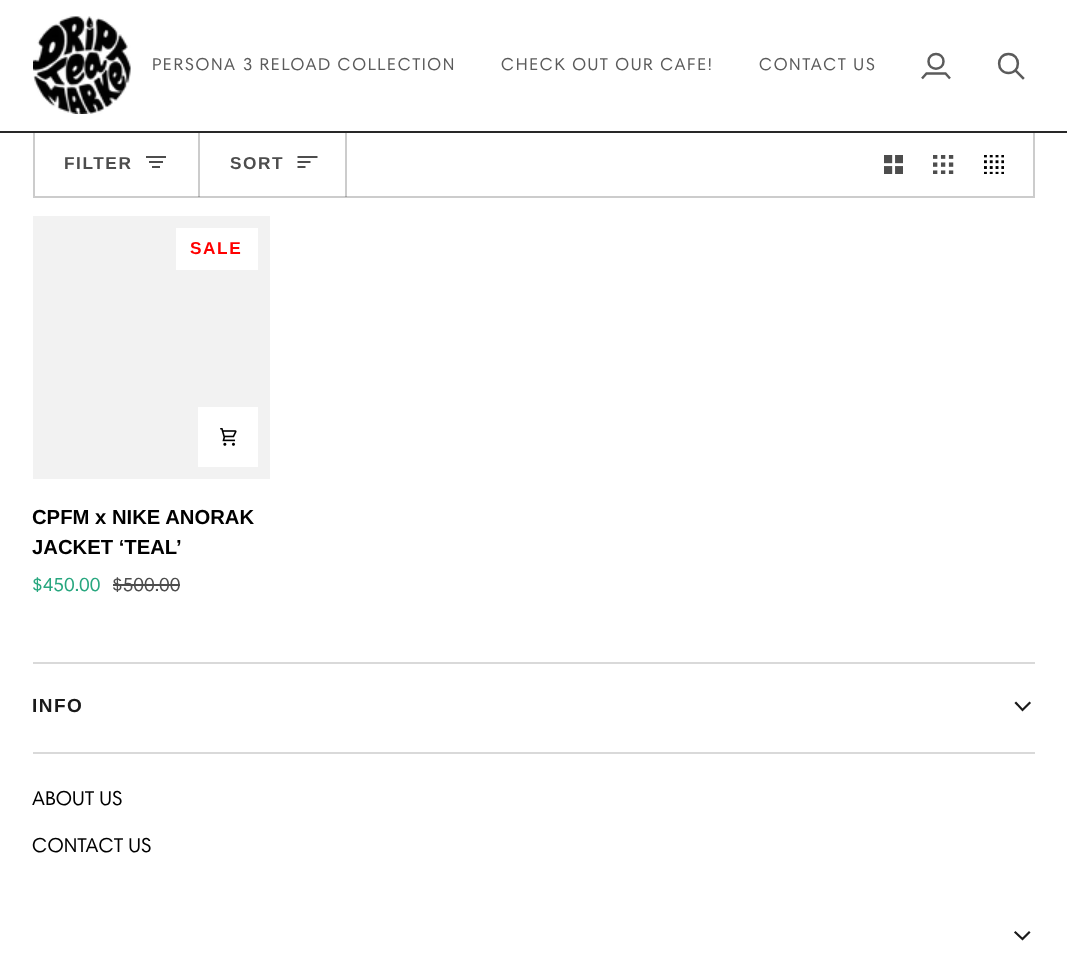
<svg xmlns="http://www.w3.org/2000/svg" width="1067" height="953">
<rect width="100%" height="100%" fill="#fff"/>
<rect x="34" y="132" width="1000" height="65" fill="none" stroke="#ccc" stroke-width="2"/>
<rect x="198" y="132" width="2" height="65" fill="#00000033"/>
<rect x="345" y="132" width="2" height="65" fill="#00000033"/>
<rect y="131" width="1067" height="2" fill="#282828"/>
<image x="33" y="16" width="98" height="98" href="media/1.png"/>
<text x="152" y="70" style="font-family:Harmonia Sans;font-size:17.25px;letter-spacing:1.55px;fill:#5b5b5b">PERSONA 3 RELOAD COLLECTION</text>
<text x="501" y="70" style="font-family:Harmonia Sans;font-size:17.25px;letter-spacing:1.55px;fill:#5b5b5b">CHECK OUT OUR CAFE!</text>
<text x="759" y="70" style="font-family:Harmonia Sans;font-size:17.25px;letter-spacing:1.55px;fill:#5b5b5b">CONTACT US</text>
<path d="M922 78.5l4.5-5h19l4.5 5m-6.5-17c0 9.5-15 9.5-15 0c0-10 15-10 15 0z" fill="none" stroke="#5b5b5b" stroke-width="2.5"/>
<path d="M1008.5 73c12.5 0 12.5-19 0-19c-12.5 0-12.5 19 0 19zm14.5 5l-7-7" fill="none" stroke="#5b5b5b" stroke-width="2.5" stroke-linecap="square"/>
<text x="64" y="169" style="font-family:Liberation Sans;font-size:17.25px;font-weight:bold;letter-spacing:1.55px;fill:#4d4d4d">FILTER</text>
<path d="M165 157h-18m15 5h-12m9 5h-6" fill="none" stroke="#4d4d4d" stroke-width="2" stroke-linecap="square"/>
<text x="230" y="169" style="font-family:Liberation Sans;font-size:17.25px;font-weight:bold;letter-spacing:1.55px;fill:#4d4d4d">SORT</text>
<path d="M316.5 157h-18m11 5h-11m6 5h-6" fill="none" stroke="#4d4d4d" stroke-width="2" stroke-linecap="square"/>
<image x="884" y="155" width="19" height="19" href="media/2.png"/>
<image x="933" y="155" width="21" height="19" href="media/3.png"/>
<image x="984" y="155" width="20" height="19" href="media/4.png"/>
<rect x="33" y="216" width="237" height="263" fill="#f2f2f2"/>
<rect x="176" y="228" width="82" height="42" fill="#fff"/>
<text x="190" y="254" style="font-family:Liberation Sans;font-size:17.25px;font-weight:bold;letter-spacing:1.55px;fill:#f00">SALE</text>
<rect x="198" y="407" width="60" height="60" fill="#fff"/>
<image x="220" y="428" width="17" height="18" href="media/5.png"/>
<text x="32" y="524" style="font-family:Liberation Sans;font-size:20.25px;font-weight:bold;fill:#000">CPFM x NIKE ANORAK</text>
<text x="32" y="554" style="font-family:Liberation Sans;font-size:20.25px;font-weight:bold;fill:#000">JACKET ‘TEAL’</text>
<text x="32" y="591" style="font-family:Harmonia Sans;font-size:19px;fill:#28a77f">$450.00</text>
<text x="112" y="591" style="font-family:Harmonia Sans;font-size:19px;fill:#4d4d4d">$500.00</text>
<rect x="113" y="584" width="67" height="2" fill="#4d4d4d"/>
<rect x="33" y="662" width="1002" height="2" fill="#d9d9d9"/>
<rect x="33" y="752" width="1002" height="2" fill="#d9d9d9"/>
<text x="32" y="712" style="font-family:Liberation Sans;font-size:19px;font-weight:bold;letter-spacing:1.5px;fill:#1a1a1a">INFO</text>
<path d="M1016 703l6.5 7l7-7" fill="none" stroke="#1a1a1a" stroke-width="2.2" stroke-linecap="square"/>
<text x="32" y="805" style="font-family:Harmonia Sans;font-size:20.25px;fill:#000">ABOUT US</text>
<text x="32" y="852" style="font-family:Harmonia Sans;font-size:20.25px;fill:#000">CONTACT US</text>
<path d="M1015.5 932.5l7 6.5l6.5-6.5" fill="none" stroke="#1a1a1a" stroke-width="2.2" stroke-linecap="square"/>
</svg>
